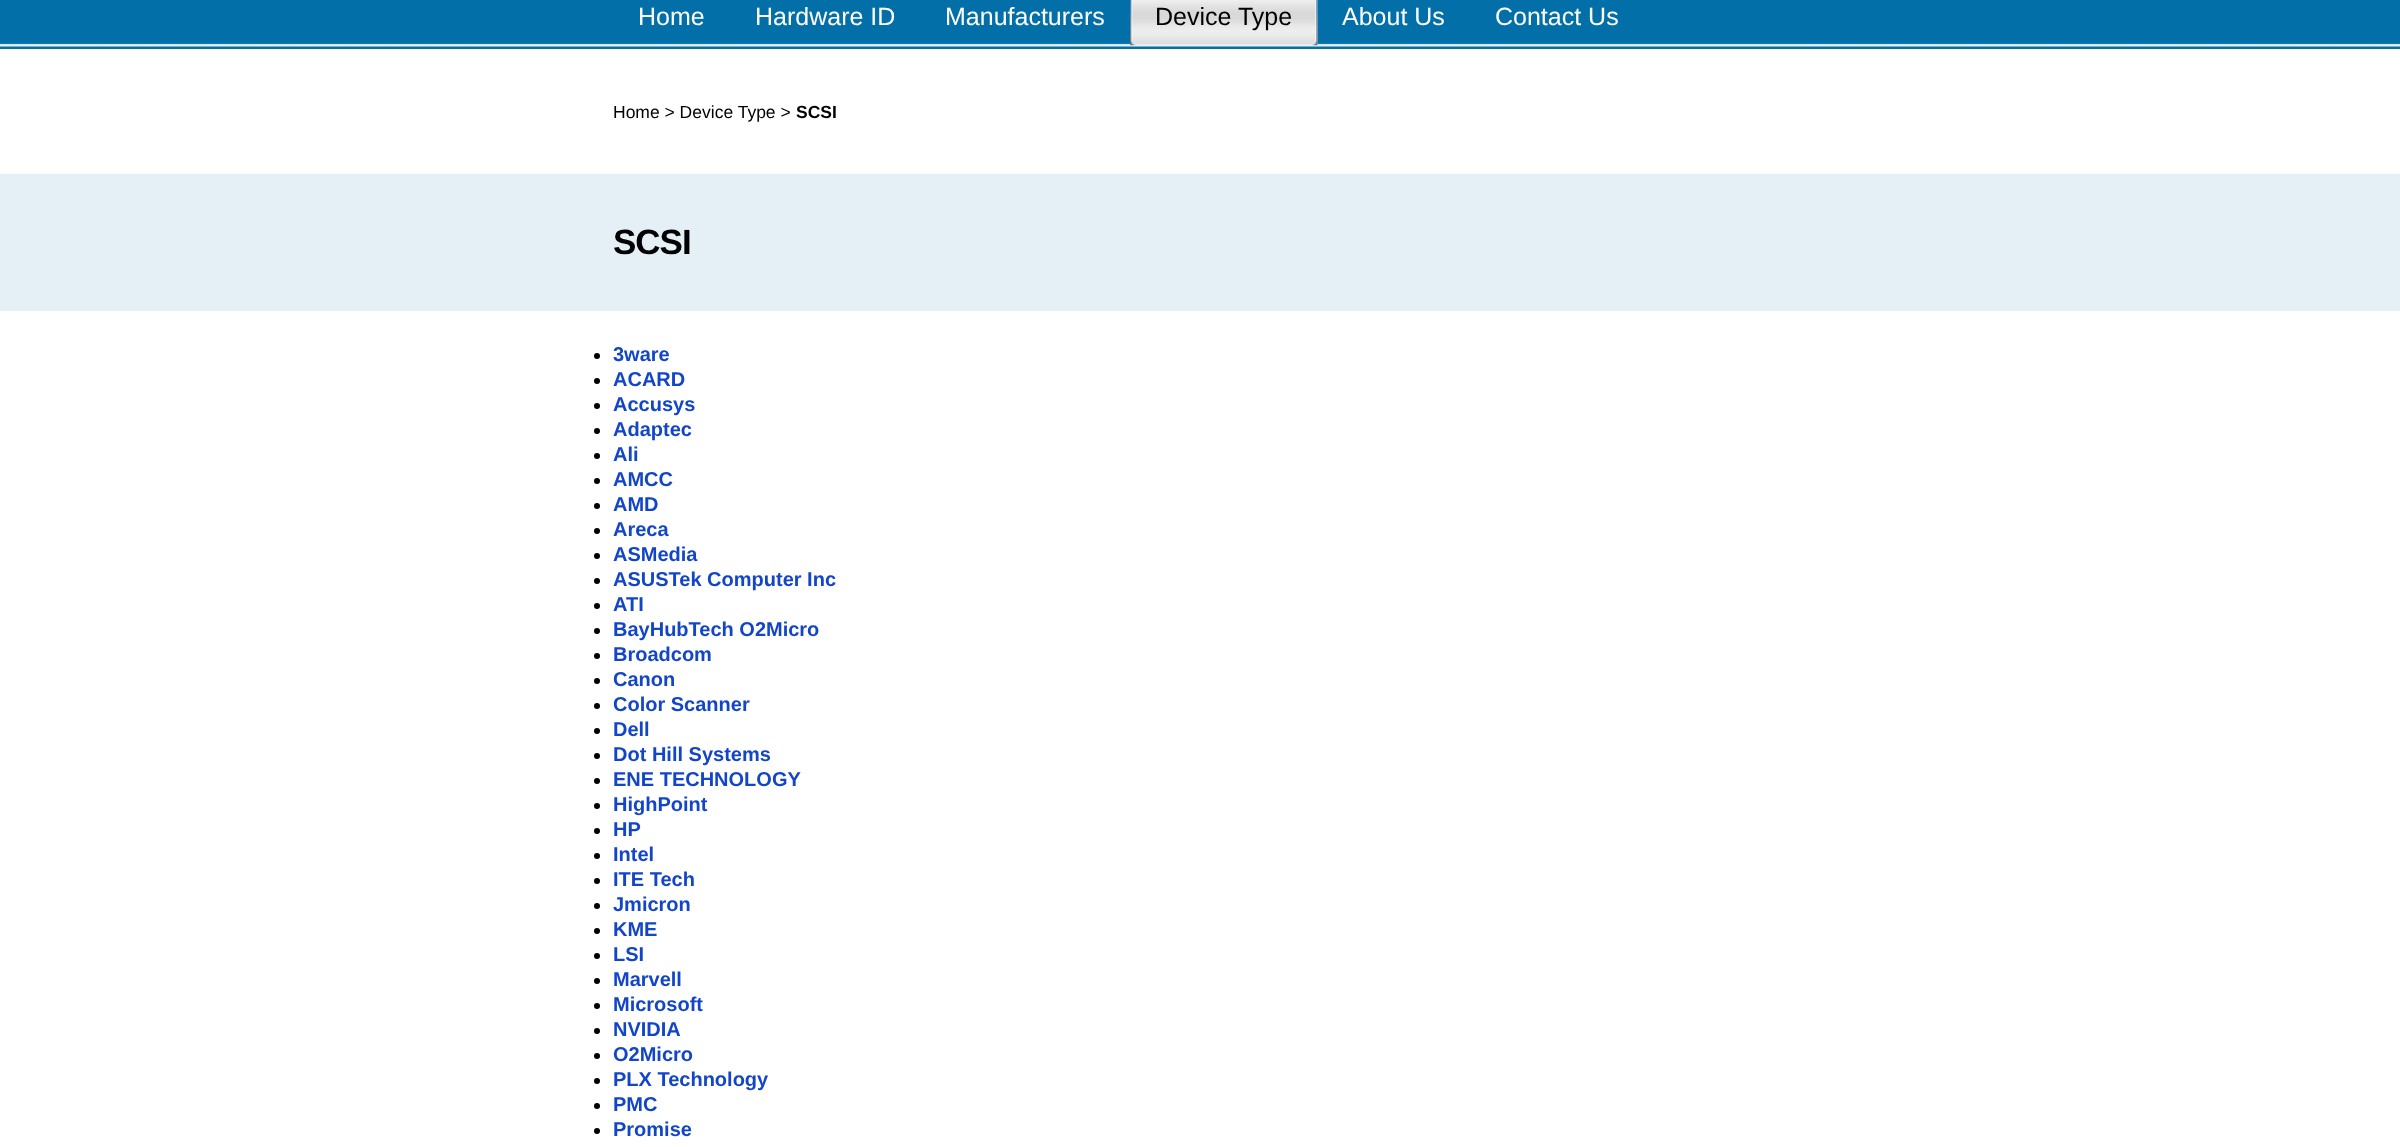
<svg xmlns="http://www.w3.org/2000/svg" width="2400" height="1147">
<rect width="100%" height="100%" fill="#fff"/>
<image x="0" y="0" width="2400" height="49" href="media/1.png"/>
<text x="638" y="25" style="font-family:Liberation Sans;font-size:25px;fill:#fff">Home</text>
<text x="755" y="25" style="font-family:Liberation Sans;font-size:25px;fill:#fff">Hardware ID</text>
<text x="945" y="25" style="font-family:Liberation Sans;font-size:25px;fill:#fff">Manufacturers</text>
<image x="1130" y="0" width="188" height="46" href="media/2.png"/>
<image x="1312" y="0" width="6" height="46" href="media/3.png"/>
<text x="1155" y="25" style="font-family:Liberation Sans;font-size:25px;fill:#000">Device Type</text>
<text x="1342" y="25" style="font-family:Liberation Sans;font-size:25px;fill:#fff">About Us</text>
<text x="1495" y="25" style="font-family:Liberation Sans;font-size:25px;fill:#fff">Contact Us</text>
<text x="613" y="118" style="font-family:Liberation Sans;font-size:17.5px;fill:#000">Home &gt; Device Type &gt;</text>
<text x="796" y="118" style="font-family:Liberation Sans;font-size:17.5px;font-weight:bold;fill:#000">SCSI</text>
<rect y="174" width="2400" height="137" fill="#e4eff6"/>
<text x="613" y="254" style="font-family:Liberation Sans;font-size:35px;font-weight:bold;letter-spacing:-1px;fill:#000">SCSI</text>
<circle cx="597" cy="356" r="3" fill="#000"/>
<text x="613" y="361" style="font-family:Liberation Sans;font-size:20px;font-weight:bold;fill:#1245c7">3ware</text>
<circle cx="597" cy="381" r="3" fill="#000"/>
<text x="613" y="386" style="font-family:Liberation Sans;font-size:20px;font-weight:bold;fill:#1245c7">ACARD</text>
<circle cx="597" cy="406" r="3" fill="#000"/>
<text x="613" y="411" style="font-family:Liberation Sans;font-size:20px;font-weight:bold;fill:#1245c7">Accusys</text>
<circle cx="597" cy="431" r="3" fill="#000"/>
<text x="613" y="436" style="font-family:Liberation Sans;font-size:20px;font-weight:bold;fill:#1245c7">Adaptec</text>
<circle cx="597" cy="456" r="3" fill="#000"/>
<text x="613" y="461" style="font-family:Liberation Sans;font-size:20px;font-weight:bold;fill:#1245c7">Ali</text>
<circle cx="597" cy="481" r="3" fill="#000"/>
<text x="613" y="486" style="font-family:Liberation Sans;font-size:20px;font-weight:bold;fill:#1245c7">AMCC</text>
<circle cx="597" cy="506" r="3" fill="#000"/>
<text x="613" y="511" style="font-family:Liberation Sans;font-size:20px;font-weight:bold;fill:#1245c7">AMD</text>
<circle cx="597" cy="531" r="3" fill="#000"/>
<text x="613" y="536" style="font-family:Liberation Sans;font-size:20px;font-weight:bold;fill:#1245c7">Areca</text>
<circle cx="597" cy="556" r="3" fill="#000"/>
<text x="613" y="561" style="font-family:Liberation Sans;font-size:20px;font-weight:bold;fill:#1245c7">ASMedia</text>
<circle cx="597" cy="581" r="3" fill="#000"/>
<text x="613" y="586" style="font-family:Liberation Sans;font-size:20px;font-weight:bold;fill:#1245c7">ASUSTek Computer Inc</text>
<circle cx="597" cy="606" r="3" fill="#000"/>
<text x="613" y="611" style="font-family:Liberation Sans;font-size:20px;font-weight:bold;fill:#1245c7">ATI</text>
<circle cx="597" cy="631" r="3" fill="#000"/>
<text x="613" y="636" style="font-family:Liberation Sans;font-size:20px;font-weight:bold;fill:#1245c7">BayHubTech O2Micro</text>
<circle cx="597" cy="656" r="3" fill="#000"/>
<text x="613" y="661" style="font-family:Liberation Sans;font-size:20px;font-weight:bold;fill:#1245c7">Broadcom</text>
<circle cx="597" cy="681" r="3" fill="#000"/>
<text x="613" y="686" style="font-family:Liberation Sans;font-size:20px;font-weight:bold;fill:#1245c7">Canon</text>
<circle cx="597" cy="706" r="3" fill="#000"/>
<text x="613" y="711" style="font-family:Liberation Sans;font-size:20px;font-weight:bold;fill:#1245c7">Color Scanner</text>
<circle cx="597" cy="731" r="3" fill="#000"/>
<text x="613" y="736" style="font-family:Liberation Sans;font-size:20px;font-weight:bold;fill:#1245c7">Dell</text>
<circle cx="597" cy="756" r="3" fill="#000"/>
<text x="613" y="761" style="font-family:Liberation Sans;font-size:20px;font-weight:bold;fill:#1245c7">Dot Hill Systems</text>
<circle cx="597" cy="781" r="3" fill="#000"/>
<text x="613" y="786" style="font-family:Liberation Sans;font-size:20px;font-weight:bold;fill:#1245c7">ENE TECHNOLOGY</text>
<circle cx="597" cy="806" r="3" fill="#000"/>
<text x="613" y="811" style="font-family:Liberation Sans;font-size:20px;font-weight:bold;fill:#1245c7">HighPoint</text>
<circle cx="597" cy="831" r="3" fill="#000"/>
<text x="613" y="836" style="font-family:Liberation Sans;font-size:20px;font-weight:bold;fill:#1245c7">HP</text>
<circle cx="597" cy="856" r="3" fill="#000"/>
<text x="613" y="861" style="font-family:Liberation Sans;font-size:20px;font-weight:bold;fill:#1245c7">Intel</text>
<circle cx="597" cy="881" r="3" fill="#000"/>
<text x="613" y="886" style="font-family:Liberation Sans;font-size:20px;font-weight:bold;fill:#1245c7">ITE Tech</text>
<circle cx="597" cy="906" r="3" fill="#000"/>
<text x="613" y="911" style="font-family:Liberation Sans;font-size:20px;font-weight:bold;fill:#1245c7">Jmicron</text>
<circle cx="597" cy="931" r="3" fill="#000"/>
<text x="613" y="936" style="font-family:Liberation Sans;font-size:20px;font-weight:bold;fill:#1245c7">KME</text>
<circle cx="597" cy="956" r="3" fill="#000"/>
<text x="613" y="961" style="font-family:Liberation Sans;font-size:20px;font-weight:bold;fill:#1245c7">LSI</text>
<circle cx="597" cy="981" r="3" fill="#000"/>
<text x="613" y="986" style="font-family:Liberation Sans;font-size:20px;font-weight:bold;fill:#1245c7">Marvell</text>
<circle cx="597" cy="1006" r="3" fill="#000"/>
<text x="613" y="1011" style="font-family:Liberation Sans;font-size:20px;font-weight:bold;fill:#1245c7">Microsoft</text>
<circle cx="597" cy="1031" r="3" fill="#000"/>
<text x="613" y="1036" style="font-family:Liberation Sans;font-size:20px;font-weight:bold;fill:#1245c7">NVIDIA</text>
<circle cx="597" cy="1056" r="3" fill="#000"/>
<text x="613" y="1061" style="font-family:Liberation Sans;font-size:20px;font-weight:bold;fill:#1245c7">O2Micro</text>
<circle cx="597" cy="1081" r="3" fill="#000"/>
<text x="613" y="1086" style="font-family:Liberation Sans;font-size:20px;font-weight:bold;fill:#1245c7">PLX Technology</text>
<circle cx="597" cy="1106" r="3" fill="#000"/>
<text x="613" y="1111" style="font-family:Liberation Sans;font-size:20px;font-weight:bold;fill:#1245c7">PMC</text>
<circle cx="597" cy="1131" r="3" fill="#000"/>
<text x="613" y="1136" style="font-family:Liberation Sans;font-size:20px;font-weight:bold;fill:#1245c7">Promise</text>
</svg>
